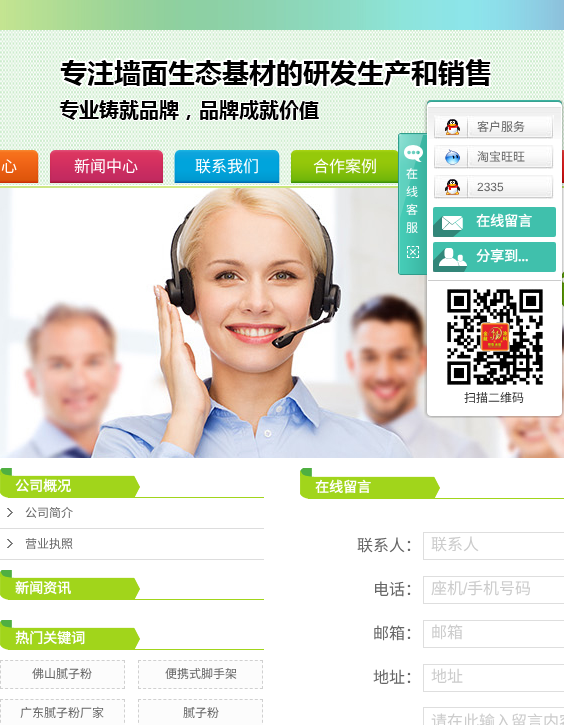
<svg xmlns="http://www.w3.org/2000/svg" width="564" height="725">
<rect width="100%" height="100%" fill="#fff"/>
<image x="0" y="0" width="564" height="30" href="media/1.png"/>
<image x="0" y="30" width="564" height="158" href="media/2.png"/>
<image x="59" y="57" width="443" height="64" href="media/3.png"/>
<image x="0" y="150" width="39" height="33" href="media/4.png"/>
<text x="1" y="172" style="font-family:Noto Sans CJK SC;font-size:16px;fill:#fff">心</text>
<image x="50" y="150" width="113" height="33" href="media/5.png"/>
<text x="74" y="172" style="font-family:Noto Sans CJK SC;font-size:16px;fill:#fff">新闻中心</text>
<image x="174" y="150" width="106" height="33" href="media/6.png"/>
<text x="195" y="172" style="font-family:Noto Sans CJK SC;font-size:16px;fill:#fff">联系我们</text>
<image x="291" y="150" width="107" height="33" href="media/7.png"/>
<text x="313" y="172" style="font-family:Noto Sans CJK SC;font-size:16px;fill:#fff">合作案例</text>
<image x="562" y="150" width="2" height="33" href="media/8.png"/>
<image x="0" y="188" width="564" height="270" href="media/21.png"/>
<image x="424" y="107" width="140" height="303" href="media/12.png"/>
<image x="398" y="133" width="29" height="142" href="media/9.png"/>
<text x="406" y="178" style="font-family:Noto Sans CJK SC;font-size:12px;fill:#fff">在</text>
<text x="406" y="196" style="font-family:Noto Sans CJK SC;font-size:12px;fill:#fff">线</text>
<text x="406" y="214" style="font-family:Noto Sans CJK SC;font-size:12px;fill:#fff">客</text>
<text x="406" y="232" style="font-family:Noto Sans CJK SC;font-size:12px;fill:#fff">服</text>
<image x="407" y="246" width="12" height="12" href="media/10.png"/>
<image x="424" y="100" width="140" height="7" href="media/11.png"/>
<image x="428" y="107" width="133" height="32" href="media/13.png"/>
<image x="434" y="115" width="120" height="24" href="media/14.png"/>
<image x="445" y="119" width="15" height="16" href="media/15.png"/>
<text x="477" y="131" style="font-family:Noto Sans CJK SC;font-size:12px;fill:#666">客户服务</text>
<image x="434" y="145" width="120" height="24" href="media/14.png"/>
<image x="445" y="149" width="15" height="16" href="media/16.png"/>
<text x="477" y="161" style="font-family:Noto Sans CJK SC;font-size:12px;fill:#666">淘宝旺旺</text>
<image x="434" y="175" width="120" height="24" href="media/14.png"/>
<image x="445" y="179" width="15" height="16" href="media/15.png"/>
<text x="477" y="191" style="font-family:Liberation Sans;font-size:12px;fill:#666">2335</text>
<rect x="433" y="207" width="123" height="30" rx="2" fill="#40c0ac"/>
<image x="433" y="216" width="30" height="21" href="media/17.png"/>
<text x="476" y="226" style="font-family:Noto Sans CJK SC;font-size:14px;font-weight:bold;fill:#fff">在线留言</text>
<rect x="433" y="242" width="123" height="30" rx="2" fill="#40c0ac"/>
<image x="433" y="248" width="34" height="24" href="media/18.png"/>
<text x="476" y="261" style="font-family:Noto Sans CJK SC;font-size:14px;font-weight:bold;fill:#fff">分享到</text>
<text x="518" y="261" style="font-family:Liberation Serif;font-size:14px;font-weight:bold;fill:#fff">...</text>
<rect x="428" y="280" width="133" height="1" fill="#ccc"/>
<image x="447" y="289" width="96" height="96" href="media/19.png"/>
<text x="464" y="402" style="font-family:Noto Sans CJK SC;font-size:12px;fill:#333">扫描二维码</text>
<image x="424" y="410" width="140" height="8" href="media/20.png"/>
<image x="0" y="468" width="264" height="30" href="media/22.png"/>
<text x="15" y="491" style="font-family:Noto Sans CJK SC;font-size:14px;font-weight:bold;fill:#fff">公司概况</text>
<image x="7" y="508" width="6" height="9" href="media/23.png"/>
<rect y="528" width="264" height="1" fill="#ddd"/>
<text x="25" y="517" style="font-family:Noto Sans CJK SC;font-size:12px;fill:#666">公司简介</text>
<image x="7" y="539" width="6" height="9" href="media/23.png"/>
<rect y="559" width="264" height="1" fill="#ddd"/>
<text x="25" y="548" style="font-family:Noto Sans CJK SC;font-size:12px;fill:#666">营业执照</text>
<image x="0" y="570" width="264" height="30" href="media/22.png"/>
<text x="15" y="593" style="font-family:Noto Sans CJK SC;font-size:14px;font-weight:bold;fill:#fff">新闻资讯</text>
<image x="0" y="620" width="264" height="30" href="media/22.png"/>
<text x="15" y="643" style="font-family:Noto Sans CJK SC;font-size:14px;font-weight:bold;fill:#fff">热门关键词</text>
<rect y="660" width="125" height="29" fill="#fcfcfc"/>
<path d="M0 660.5h125" fill="none" stroke="#d0d0d0" stroke-dasharray="3 2.08"/>
<path d="M124.5 660v29" fill="none" stroke="#d0d0d0" stroke-dasharray="3 2.2"/>
<path d="M0 688.5h125" fill="none" stroke="#d0d0d0" stroke-dasharray="3 2.08"/>
<path d="M.5 660v29" fill="none" stroke="#d0d0d0" stroke-dasharray="3 2.2"/>
<text x="32" y="678" style="font-family:Noto Sans CJK SC;font-size:12px;fill:#666">佛山腻子粉</text>
<rect x="138" y="660" width="125" height="29" fill="#fcfcfc"/>
<path d="M138 660.5h125" fill="none" stroke="#d0d0d0" stroke-dasharray="3 2.08"/>
<path d="M262.5 660v29" fill="none" stroke="#d0d0d0" stroke-dasharray="3 2.2"/>
<path d="M138 688.5h125" fill="none" stroke="#d0d0d0" stroke-dasharray="3 2.08"/>
<path d="M138.5 660v29" fill="none" stroke="#d0d0d0" stroke-dasharray="3 2.2"/>
<text x="165" y="678" style="font-family:Noto Sans CJK SC;font-size:12px;fill:#666">便携式脚手架</text>
<rect y="699" width="125" height="26" fill="#fcfcfc"/>
<path d="M0 699.5h125" fill="none" stroke="#d0d0d0" stroke-dasharray="3 2.08"/>
<path d="M124.5 699v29" fill="none" stroke="#d0d0d0" stroke-dasharray="3 2.2"/>
<path d="M.5 699v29" fill="none" stroke="#d0d0d0" stroke-dasharray="3 2.2"/>
<text x="20" y="717" style="font-family:Noto Sans CJK SC;font-size:12px;fill:#666">广东腻子粉厂家</text>
<rect x="138" y="699" width="125" height="26" fill="#fcfcfc"/>
<path d="M138 699.5h125" fill="none" stroke="#d0d0d0" stroke-dasharray="3 2.08"/>
<path d="M262.5 699v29" fill="none" stroke="#d0d0d0" stroke-dasharray="3 2.2"/>
<path d="M138.5 699v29" fill="none" stroke="#d0d0d0" stroke-dasharray="3 2.2"/>
<text x="183" y="717" style="font-family:Noto Sans CJK SC;font-size:12px;fill:#666">腻子粉</text>
<image x="300" y="468" width="264" height="31" href="media/24.png"/>
<text x="315" y="492" style="font-family:Noto Sans CJK SC;font-size:14px;font-weight:bold;fill:#fff">在线留言</text>
<text x="357" y="551" style="font-family:Noto Sans CJK SC;font-size:16px;fill:#666">联系人：</text>
<rect x="423.5" y="532.5" width="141" height="27" fill="none" stroke="#dedede"/>
<text x="431" y="550" style="font-family:Noto Sans CJK SC;font-size:16px;fill:#ccc">联系人</text>
<text x="373" y="595" style="font-family:Noto Sans CJK SC;font-size:16px;fill:#666">电话：</text>
<rect x="423.5" y="576.5" width="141" height="27" fill="none" stroke="#dedede"/>
<text x="431" y="594" style="font-family:Noto Sans CJK SC;font-size:16px;fill:#ccc">座机</text>
<text x="463" y="594" style="font-family:Liberation Sans;font-size:16px;fill:#ccc">/</text>
<text x="467" y="594" style="font-family:Noto Sans CJK SC;font-size:16px;fill:#ccc">手机号码</text>
<text x="373" y="639" style="font-family:Noto Sans CJK SC;font-size:16px;fill:#666">邮箱：</text>
<rect x="423.5" y="620.5" width="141" height="27" fill="none" stroke="#dedede"/>
<text x="431" y="638" style="font-family:Noto Sans CJK SC;font-size:16px;fill:#ccc">邮箱</text>
<text x="373" y="683" style="font-family:Noto Sans CJK SC;font-size:16px;fill:#666">地址：</text>
<rect x="423.5" y="664.5" width="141" height="27" fill="none" stroke="#dedede"/>
<text x="431" y="682" style="font-family:Noto Sans CJK SC;font-size:16px;fill:#ccc">地址</text>
<rect x="423.5" y="707.5" width="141" height="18" fill="none" stroke="#dedede"/>
<text x="431" y="727" style="font-family:Noto Sans CJK SC;font-size:16px;fill:#ccc">请在此输入留言内容</text>
</svg>
